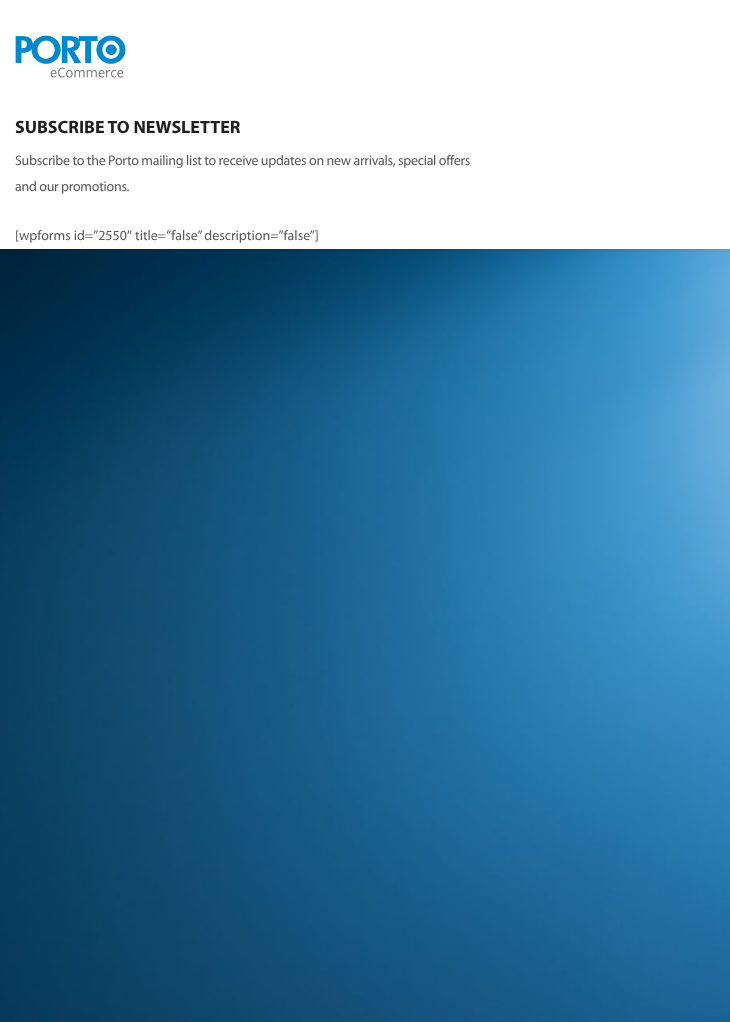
<svg xmlns="http://www.w3.org/2000/svg" width="730" height="1022">
<rect width="100%" height="100%" fill="#fff"/>
<image x="0" y="249" width="730" height="773" href="media/1.png"/>
<rect width="730" height="249" fill="#00000026" filter="blur(2px)"/>
<rect width="730" height="249" fill="#fff"/>
<image x="15" y="35" width="111" height="43" href="media/2.png"/>
<text x="15" y="133" style="font-family:Myriad;font-size:18px;font-weight:bold;fill:#1e1f20">SUBSCRIBE TO NEWSLETTER</text>
<text x="15" y="165" style="font-family:Myriad;font-size:14px;letter-spacing:-0.28px;fill:#58595c">Subscribe to the Porto mailing list to receive updates on new arrivals, special offers</text>
<text x="15" y="191" style="font-family:Myriad;font-size:14px;letter-spacing:-0.28px;fill:#58595c">and our promotions.</text>
<text x="15" y="240" style="font-family:Myriad;font-size:14px;fill:#58595c">[wpforms id=”2550</text>
<text x="127" y="240" style="font-family:Liberation Sans;font-size:14px;fill:#58595c">″</text>
<text x="135" y="240" style="font-family:Myriad;font-size:14px;fill:#58595c">title=”false” description=”false”]</text>
</svg>
